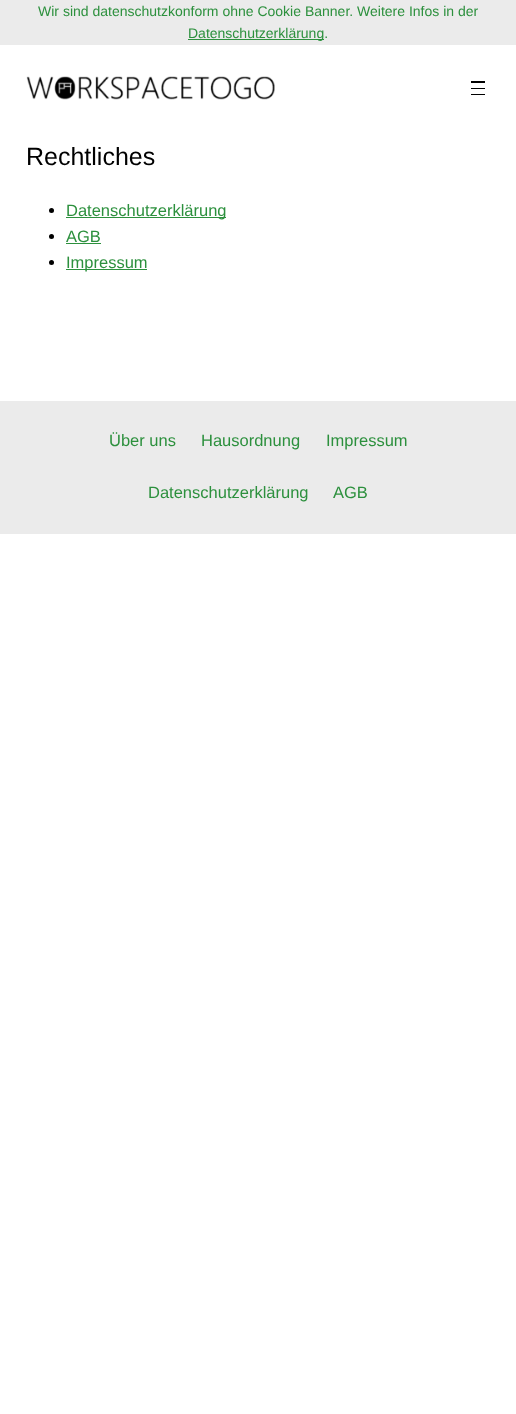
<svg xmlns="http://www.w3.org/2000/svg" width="516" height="1414">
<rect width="100%" height="100%" fill="#fff"/>
<rect width="516" height="45" fill="#ebebeb"/>
<text x="38" y="16" style="font-family:Liberation Sans;font-size:14px;fill:#2c903d">Wir sind datenschutzkonform ohne Cookie Banner. Weitere Infos in der</text>
<rect x="188" y="39" width="136" height="1" fill="#2c903d"/>
<text x="188" y="38" style="font-family:Liberation Sans;font-size:14px;fill:#2c903d">Datenschutzerklärung.</text>
<image x="26" y="76" width="249" height="24" href="media/1.png"/>
<rect x="471" y="81" width="14" height="2" fill="#000"/>
<rect x="471" y="88" width="14" height="1" fill="#000"/>
<rect x="471" y="94" width="14" height="1" fill="#000"/>
<text x="26" y="165" style="font-family:Liberation Sans;font-size:25px;fill:#000">Rechtliches</text>
<circle cx="51.5" cy="210.5" r="2.5" fill="#000"/>
<rect x="66" y="217" width="160" height="1" fill="#2c903d"/>
<text x="66" y="216" style="font-family:Liberation Sans;font-size:16.5px;fill:#2c903d">Datenschutzerklärung</text>
<circle cx="51.5" cy="236.5" r="2.5" fill="#000"/>
<text x="66" y="242" style="font-family:Liberation Sans;font-size:16.5px;fill:#2c903d">AGB</text>
<rect x="66" y="243" width="35" height="1" fill="#2c903d"/>
<circle cx="51.5" cy="262.5" r="2.5" fill="#000"/>
<rect x="66" y="269" width="81" height="1" fill="#2c903d"/>
<text x="66" y="268" style="font-family:Liberation Sans;font-size:16.5px;fill:#2c903d">Impressum</text>
<rect y="401" width="516" height="133" fill="#ebebeb"/>
<text x="109" y="446" style="font-family:Liberation Sans;font-size:16.5px;fill:#2c903d">Über uns</text>
<text x="201" y="446" style="font-family:Liberation Sans;font-size:16.5px;fill:#2c903d">Hausordnung</text>
<text x="326" y="446" style="font-family:Liberation Sans;font-size:16.5px;fill:#2c903d">Impressum</text>
<text x="148" y="498" style="font-family:Liberation Sans;font-size:16.5px;fill:#2c903d">Datenschutzerklärung</text>
<text x="333" y="498" style="font-family:Liberation Sans;font-size:16.5px;fill:#2c903d">AGB</text>
</svg>
